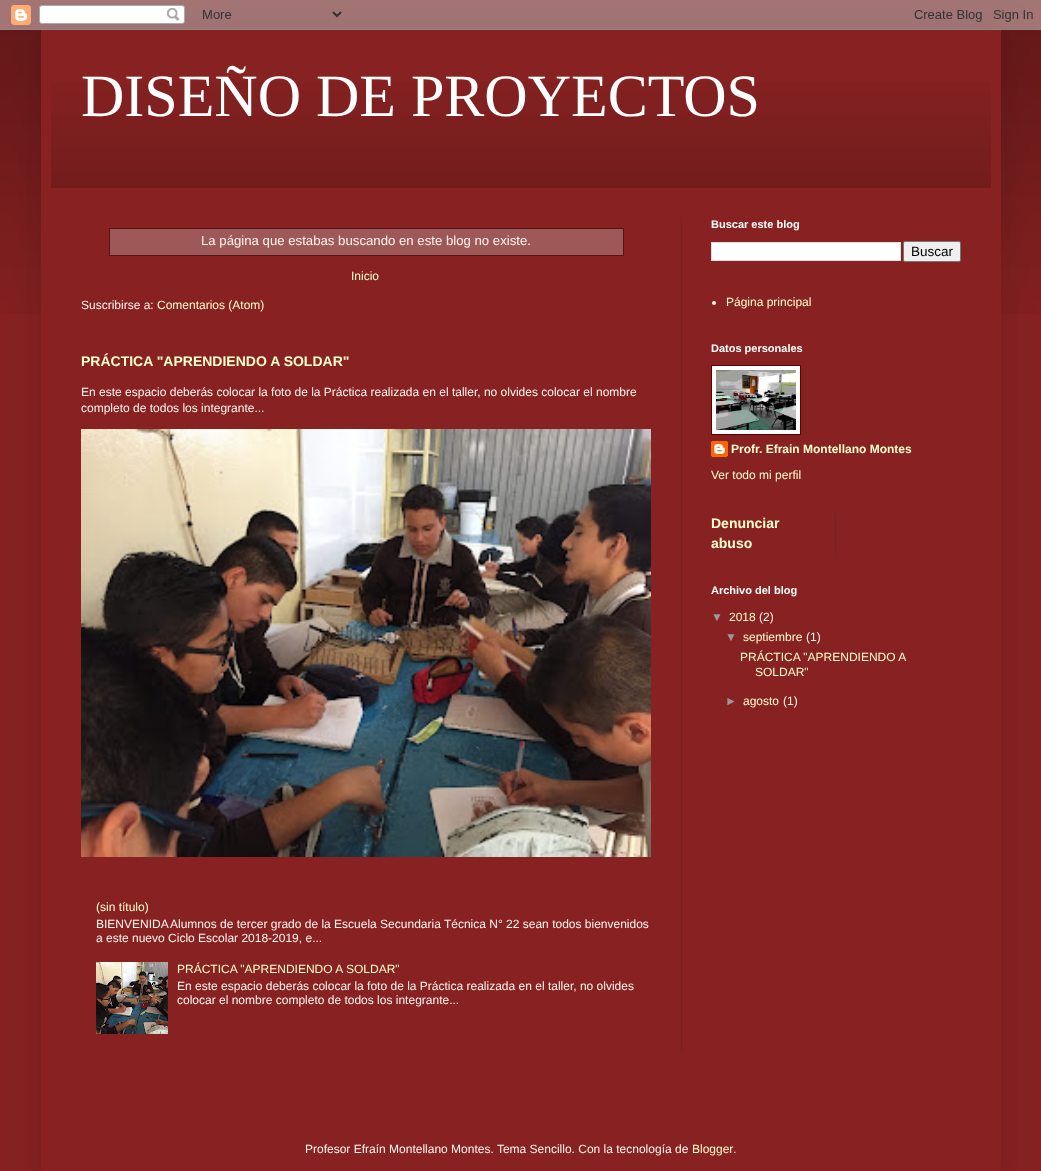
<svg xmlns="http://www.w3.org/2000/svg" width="1041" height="1171">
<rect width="100%" height="100%" fill="#822"/>
<image x="0" y="0" width="1041" height="314" href="media/1.png"/>
<rect x="41" y="30" width="960" height="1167" fill="#00000026" filter="blur(20px)"/>
<image x="0" y="0" width="1041" height="30" href="media/2.png"/>
<rect x="41" y="30" width="960" height="1141" fill="#822"/>
<image x="51" y="82" width="940" height="106" href="media/3.png"/>
<text x="81" y="116" style="font-family:Liberation Serif;font-size:60px;fill:#fff">DISEÑO DE PROYECTOS</text>
<rect x="681" y="218" width="1" height="833" fill="#722"/>
<rect x="109.5" y="228.5" width="514" height="27" fill="none" stroke="#521414"/>
<rect x="110" y="229" width="513" height="26" fill="#9e5858"/>
<text x="201" y="245" style="font-family:Liberation Sans;font-size:13.2px;fill:#fff5ee">La página que estabas buscando en este blog no existe.</text>
<text x="351" y="280" style="font-family:Liberation Sans;font-size:12px;fill:#ffc">Inicio</text>
<text x="81" y="309" style="font-family:Liberation Sans;font-size:12px;fill:#fff5ee">Suscribirse a:</text>
<text x="157" y="309" style="font-family:Liberation Sans;font-size:12px;fill:#ffc">Comentarios (Atom)</text>
<text x="81" y="366" style="font-family:Liberation Sans;font-size:14px;font-weight:bold;fill:#ffc">PRÁCTICA "APRENDIENDO A SOLDAR"</text>
<text x="81" y="396" style="font-family:Liberation Sans;font-size:12px;fill:#fff5ee">En este espacio deberás colocar la foto de la Práctica realizada en el taller, no olvides colocar el nombre</text>
<text x="81" y="412" style="font-family:Liberation Sans;font-size:12px;fill:#fff5ee">completo de todos los integrante...</text>
<image x="81" y="429" width="570" height="428" href="media/4.png"/>
<text x="96" y="911" style="font-family:Liberation Sans;font-size:12px;fill:#ffc">(sin título)</text>
<text x="96" y="928" style="font-family:Liberation Sans;font-size:12px;fill:#fff5ee">BIENVENIDA</text>
<text x="170" y="928" style="font-family:Liberation Sans;font-size:12px;fill:#fff5ee">Alumnos de tercer grado de la Escuela Secundaria Técnica N° 22 sean todos bienvenidos</text>
<text x="96" y="942" style="font-family:Liberation Sans;font-size:12px;fill:#fff5ee">a este nuevo Ciclo Escolar 2018-2019, e...</text>
<image x="96" y="962" width="72" height="72" href="media/5.png"/>
<text x="177" y="973" style="font-family:Liberation Sans;font-size:12px;fill:#ffc">PRÁCTICA "APRENDIENDO A SOLDAR"</text>
<text x="177" y="990" style="font-family:Liberation Sans;font-size:12px;fill:#fff5ee">En este espacio deberás colocar la foto de la Práctica realizada en el taller, no olvides</text>
<text x="177" y="1004" style="font-family:Liberation Sans;font-size:12px;fill:#fff5ee">colocar el nombre completo de todos los integrante...</text>
<text x="711" y="228" style="font-family:Liberation Sans;font-size:11px;font-weight:bold;fill:#fff">Buscar este blog</text>
<rect x="711.5" y="242.5" width="189" height="18" fill="#fff" stroke="#ddd"/>
<rect x="903.5" y="241.5" width="57" height="20" rx="1.5" fill="#efefef" stroke="#767676"/>
<text x="911" y="256" style="font-family:Liberation Sans;font-size:13.5px;fill:#000">Buscar</text>
<circle cx="714" cy="303" r="2" fill="#fff5ee"/>
<text x="726" y="306" style="font-family:Liberation Sans;font-size:12px;fill:#ffc">Página principal</text>
<text x="711" y="352" style="font-family:Liberation Sans;font-size:11px;font-weight:bold;fill:#fff">Datos personales</text>
<image x="711" y="441" width="17" height="16" href="media/7.png"/>
<rect x="712" y="366" width="90" height="70" fill="#0000001a" filter="blur(2.5px)"/>
<rect x="711.5" y="365.5" width="89" height="69" fill="#fff" stroke="#600"/>
<image x="716" y="370" width="80" height="60" href="media/6.png"/>
<text x="731" y="453" style="font-family:Liberation Sans;font-size:12px;font-weight:bold;fill:#ffc">Profr. Efrain Montellano Montes</text>
<text x="711" y="479" style="font-family:Liberation Sans;font-size:12px;fill:#ffc">Ver todo mi perfil</text>
<text x="711" y="528" style="font-family:Liberation Sans;font-size:14px;font-weight:bold;fill:#ffc">Denunciar</text>
<text x="711" y="548" style="font-family:Liberation Sans;font-size:14px;font-weight:bold;fill:#ffc">abuso</text>
<rect x="835" y="514" width="1" height="40" fill="#722"/>
<text x="711" y="594" style="font-family:Liberation Sans;font-size:11px;font-weight:bold;fill:#fff">Archivo del blog</text>
<text x="711" y="621" style="font-family:Liberation Sans;font-size:12px;fill:#999">▼</text>
<text x="729" y="621" style="font-family:Liberation Sans;font-size:12px;fill:#ffc">2018</text>
<text x="759" y="621" style="font-family:Liberation Sans;font-size:12px;fill:#fff5ee">(2)</text>
<text x="725" y="641" style="font-family:Liberation Sans;font-size:12px;fill:#999">▼</text>
<text x="743" y="641" style="font-family:Liberation Sans;font-size:12px;fill:#ffc">septiembre</text>
<text x="806" y="641" style="font-family:Liberation Sans;font-size:12px;fill:#fff5ee">(1)</text>
<text x="740" y="661" style="font-family:Liberation Sans;font-size:12px;fill:#ffc">PRÁCTICA "APRENDIENDO A</text>
<text x="755" y="676" style="font-family:Liberation Sans;font-size:12px;fill:#ffc">SOLDAR"</text>
<text x="725" y="705" style="font-family:Liberation Sans;font-size:12px;fill:#999">►</text>
<text x="743" y="705" style="font-family:Liberation Sans;font-size:12px;fill:#ffc">agosto</text>
<text x="783" y="705" style="font-family:Liberation Sans;font-size:12px;fill:#fff5ee">(1)</text>
<text x="305" y="1153" style="font-family:Liberation Sans;font-size:12px;fill:#fff5ee">Profesor Efraín Montellano Montes. Tema Sencillo. Con la tecnología de</text>
<text x="692" y="1153" style="font-family:Liberation Sans;font-size:12px;fill:#ffc">Blogger</text>
<text x="733" y="1153" style="font-family:Liberation Sans;font-size:12px;fill:#fff5ee">.</text>
</svg>
